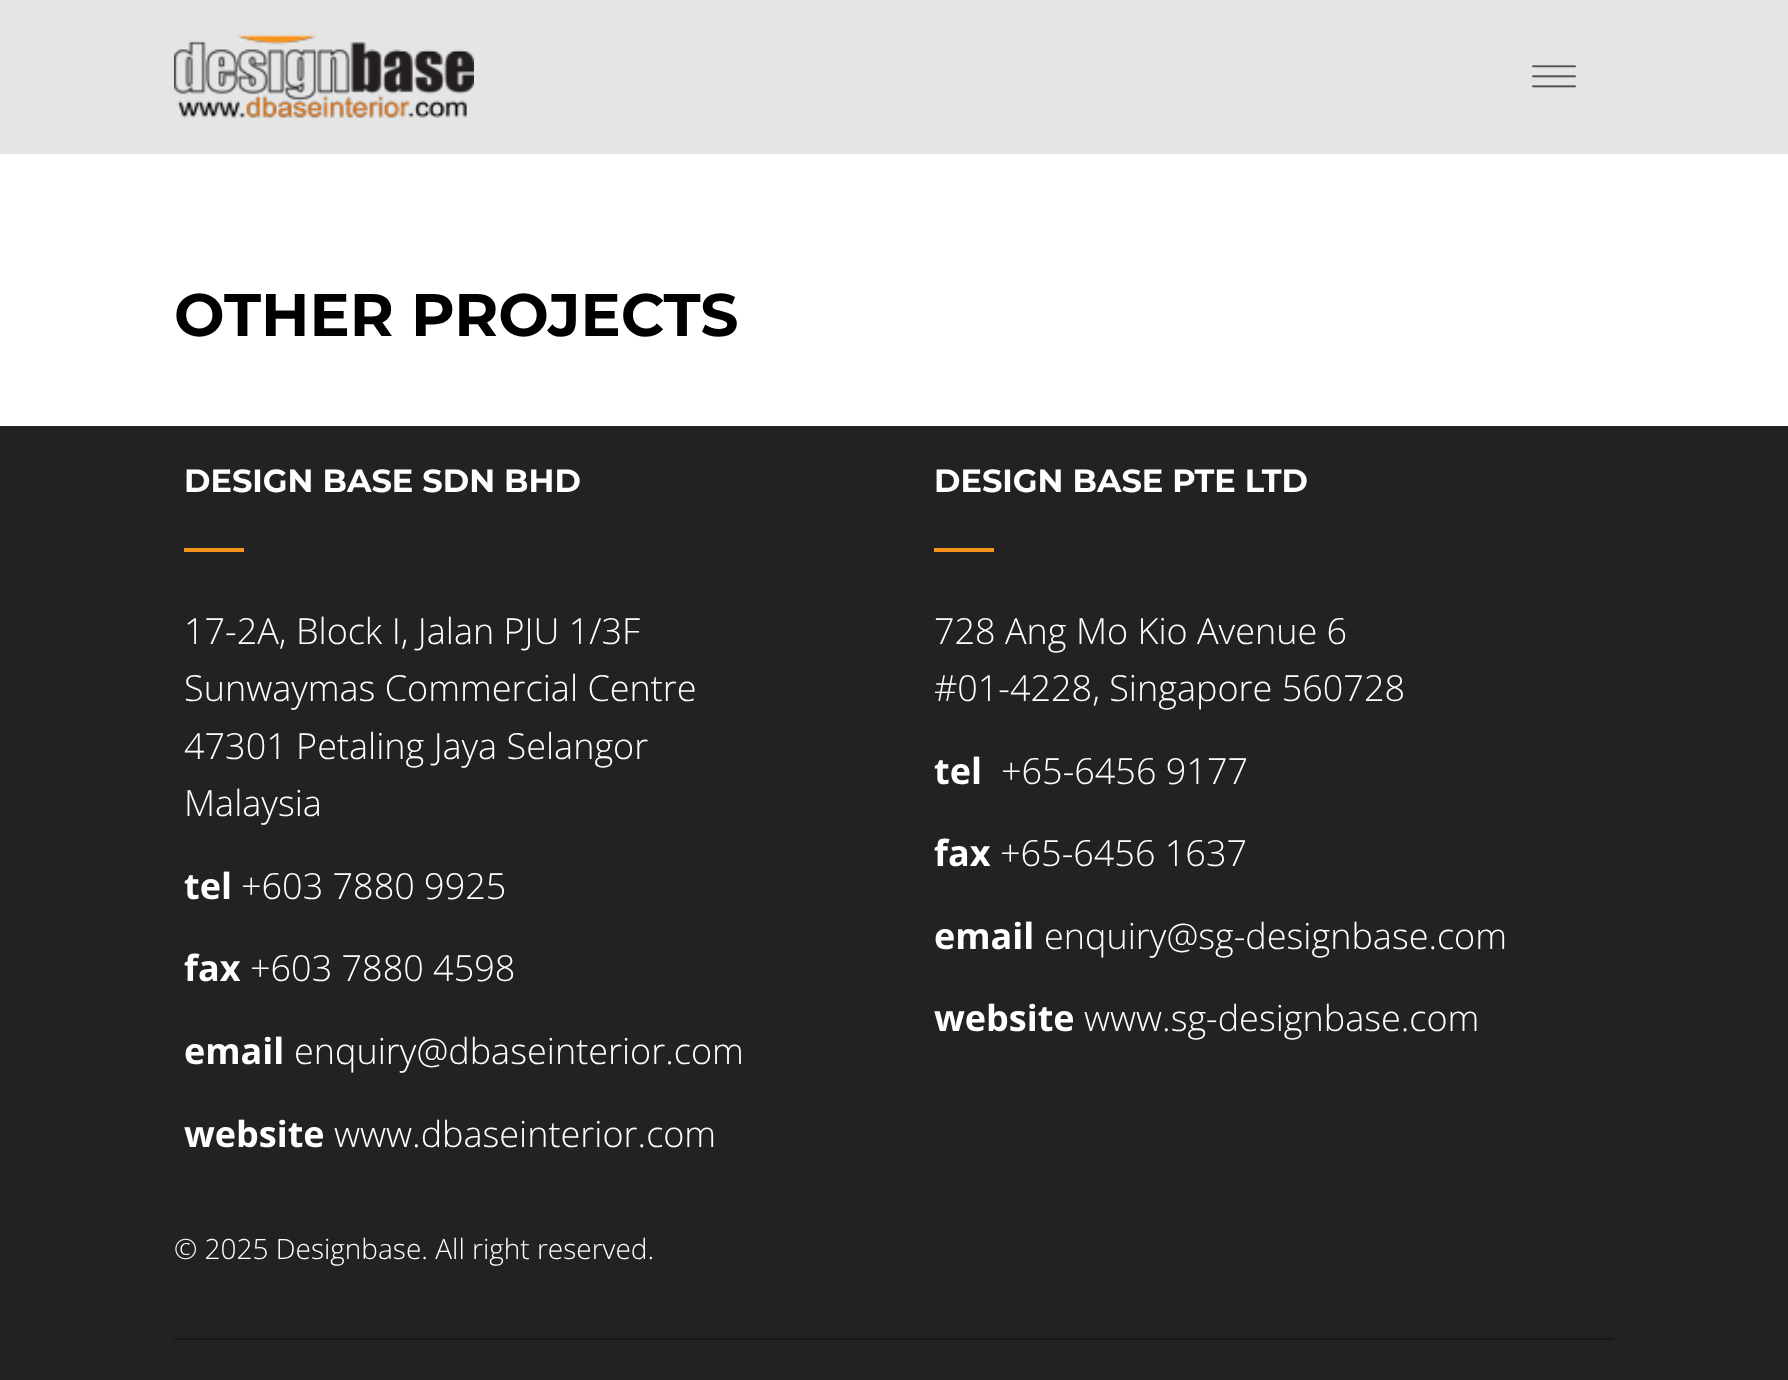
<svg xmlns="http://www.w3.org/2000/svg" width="1788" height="1380">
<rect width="100%" height="100%" fill="#fff"/>
<rect width="1788" height="154" fill="#e5e5e5"/>
<image x="174" y="34" width="300" height="84" href="media/1.png"/>
<image x="1532" y="65" width="44" height="23" href="media/2.png"/>
<text x="174" y="336" style="font-family:Montserrat;font-size:60px;font-weight:bold;fill:#000">OTHER PROJECTS</text>
<rect y="426" width="1788" height="954" fill="#222"/>
<text x="184" y="492" style="font-family:Montserrat;font-size:32px;font-weight:bold;fill:#fff">DESIGN BASE SDN BHD</text>
<rect x="184" y="548" width="60" height="4" fill="#f6921e"/>
<text x="184" y="644" style="font-family:Open Sans;font-size:36px;font-weight:300;fill:#fff">17-2A, Block I, Jalan PJU 1/3F</text>
<text x="184" y="701" style="font-family:Open Sans;font-size:36px;font-weight:300;fill:#fff">Sunwaymas Commercial Centre</text>
<text x="184" y="759" style="font-family:Open Sans;font-size:36px;font-weight:300;fill:#fff">47301 Petaling Jaya Selangor</text>
<text x="184" y="816" style="font-family:Open Sans;font-size:36px;font-weight:300;fill:#fff">Malaysia</text>
<text x="184" y="899" style="font-family:Open Sans;font-size:36px;font-weight:bold;fill:#fff">tel</text>
<text x="241" y="899" style="font-family:Open Sans;font-size:36px;font-weight:300;fill:#fff">+603 7880 9925</text>
<text x="184" y="981" style="font-family:Open Sans;font-size:36px;font-weight:bold;fill:#fff">fax</text>
<text x="250" y="981" style="font-family:Open Sans;font-size:36px;font-weight:300;fill:#fff">+603 7880 4598</text>
<text x="184" y="1064" style="font-family:Open Sans;font-size:36px;font-weight:bold;fill:#fff">email</text>
<text x="294" y="1064" style="font-family:Open Sans;font-size:36px;font-weight:300;fill:#fff">enquiry@dbaseinterior.com</text>
<text x="184" y="1147" style="font-family:Open Sans;font-size:36px;font-weight:bold;fill:#fff">website</text>
<text x="334" y="1147" style="font-family:Open Sans;font-size:36px;font-weight:300;fill:#fff">www.dbaseinterior.com</text>
<text x="934" y="492" style="font-family:Montserrat;font-size:32px;font-weight:bold;fill:#fff">DESIGN BASE PTE LTD</text>
<rect x="934" y="548" width="60" height="4" fill="#f6921e"/>
<text x="934" y="644" style="font-family:Open Sans;font-size:36px;font-weight:300;fill:#fff">728 Ang Mo Kio Avenue 6</text>
<text x="934" y="701" style="font-family:Open Sans;font-size:36px;font-weight:300;fill:#fff">#01-4228, Singapore 560728</text>
<text x="934" y="784" style="font-family:Open Sans;font-size:36px;font-weight:bold;fill:#fff">tel</text>
<text x="1001" y="784" style="font-family:Open Sans;font-size:36px;font-weight:300;fill:#fff">+65-6456 9177</text>
<text x="934" y="866" style="font-family:Open Sans;font-size:36px;font-weight:bold;fill:#fff">fax</text>
<text x="1000" y="866" style="font-family:Open Sans;font-size:36px;font-weight:300;fill:#fff">+65-6456 1637</text>
<text x="934" y="949" style="font-family:Open Sans;font-size:36px;font-weight:bold;fill:#fff">email</text>
<text x="1044" y="949" style="font-family:Open Sans;font-size:36px;font-weight:300;fill:#fff">enquiry@sg-designbase.com</text>
<text x="934" y="1031" style="font-family:Open Sans;font-size:36px;font-weight:bold;fill:#fff">website</text>
<text x="1084" y="1031" style="font-family:Open Sans;font-size:36px;font-weight:300;fill:#fff">www.sg-designbase.com</text>
<rect x="174" y="1338" width="1440" height="2" fill="#181818"/>
<text x="174" y="1259" style="font-family:Open Sans;font-size:28px;font-weight:300;fill:#fff">© 2025 Designbase. All right reserved.</text>
</svg>
